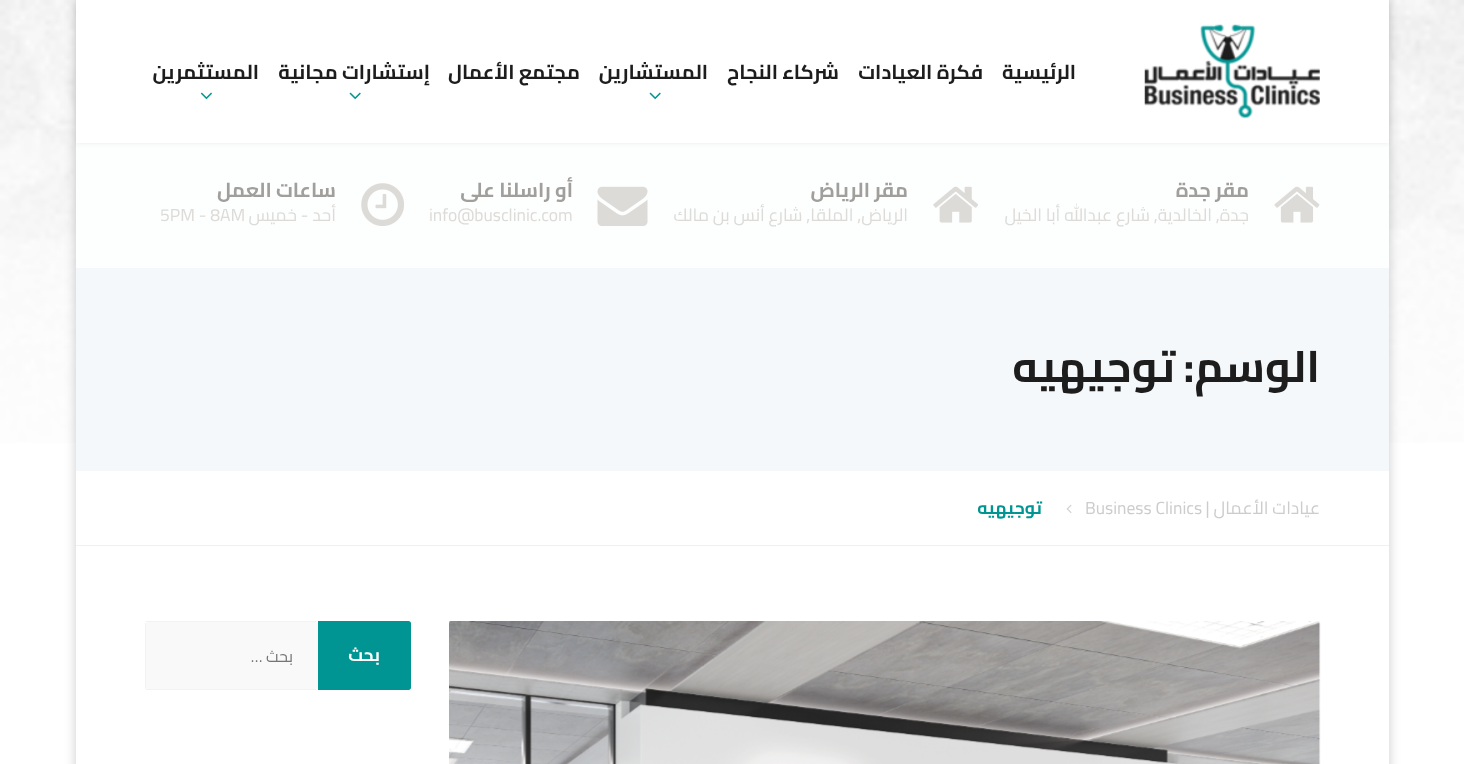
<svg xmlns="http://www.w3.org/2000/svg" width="1464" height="764">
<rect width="100%" height="100%" fill="#fff"/>
<image x="0" y="0" width="1464" height="443" href="media/1.png"/>
<rect x="76" width="1313" height="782" fill="#00000033" filter="blur(6px)"/>
<rect x="76" y="471" width="1313" height="293" fill="#fff"/>
<rect x="76" y="143" width="1313" height="125" fill="#fdfefe"/>
<rect x="76" y="1" width="1313" height="143" fill="#32323212" filter="blur(2px)"/>
<rect x="76" width="1313" height="143" fill="#fff"/>
<image x="1144" y="24" width="176" height="95" href="media/2.png"/>
<text x="1076" y="79" style="font-family:Cairo;font-size:20px;font-weight:bold;direction:rtl;fill:#1d1d1d">الرئيسية</text>
<text x="983" y="79" style="font-family:Cairo;font-size:20px;font-weight:bold;direction:rtl;fill:#1d1d1d">فكرة العيادات</text>
<text x="839" y="79" style="font-family:Cairo;font-size:20px;font-weight:bold;direction:rtl;fill:#1d1d1d">شركاء النجاح</text>
<text x="708" y="79" style="font-family:Cairo;font-size:20px;font-weight:bold;direction:rtl;fill:#1d1d1d">المستشارين</text>
<image x="649" y="92" width="12" height="8" href="media/3.png"/>
<text x="580" y="79" style="font-family:Cairo;font-size:20px;font-weight:bold;direction:rtl;fill:#1d1d1d">مجتمع الأعمال</text>
<text x="430" y="79" style="font-family:Cairo;font-size:20px;font-weight:bold;direction:rtl;fill:#1d1d1d">إستشارات مجانية</text>
<image x="349" y="92" width="12" height="8" href="media/3.png"/>
<text x="259" y="79" style="font-family:Cairo;font-size:20px;font-weight:bold;direction:rtl;fill:#1d1d1d">المستثمرين</text>
<image x="200" y="92" width="12" height="8" href="media/4.png"/>
<image x="1274" y="186" width="46" height="37" href="media/5.png"/>
<text x="1249" y="197" style="font-family:Cairo;font-size:20px;font-weight:bold;direction:rtl;fill:#a09f9b">مقر جدة</text>
<text x="1249" y="221" style="font-family:Cairo;font-size:17.5px;direction:rtl;fill:#dcdbd7">جدة, الخالدية, شارع عبدالله أبا الخيل</text>
<image x="933" y="186" width="45" height="37" href="media/6.png"/>
<text x="908" y="197" style="font-family:Cairo;font-size:20px;font-weight:bold;direction:rtl;fill:#a09f9b">مقر الرياض</text>
<text x="908" y="221" style="font-family:Cairo;font-size:17.5px;direction:rtl;fill:#dcdbd7">الرياض, الملقا, شارع أنس بن مالك</text>
<image x="597" y="186" width="51" height="40" href="media/7.png"/>
<text x="573" y="197" style="font-family:Cairo;font-size:20px;font-weight:bold;direction:rtl;fill:#a09f9b">أو راسلنا على</text>
<text x="429" y="221" style="font-family:Cairo;font-size:17.5px;fill:#dcdbd7">info@busclinic.com</text>
<image x="361" y="183" width="43" height="43" href="media/8.png"/>
<text x="336" y="197" style="font-family:Cairo;font-size:20px;font-weight:bold;direction:rtl;fill:#a09f9b">ساعات العمل</text>
<text x="336" y="221" style="font-family:Cairo;font-size:17.5px;direction:rtl;fill:#dcdbd7">أحد - خميس</text>
<text x="160" y="221" style="font-family:Cairo;font-size:17.5px;fill:#dcdbd7">5PM - 8AM</text>
<rect x="76" y="268" width="1313" height="203" fill="#f5f8fb"/>
<text x="1320" y="382" style="font-family:Cairo;font-size:44px;font-weight:bold;direction:rtl;fill:#1d1d1d">الوسم:</text>
<text x="1175" y="382" style="font-family:Cairo;font-size:44px;font-weight:bold;direction:rtl;fill:#1d1d1d">توجيهيه</text>
<rect x="76" y="545" width="1313" height="1" fill="#f0f0f0"/>
<text x="1320" y="514" style="font-family:Cairo;font-size:17.5px;direction:rtl;fill:#ccc">عيادات الأعمال |</text>
<text x="1085" y="514" style="font-family:Cairo;font-size:17.5px;fill:#ccc">Business Clinics</text>
<image x="1066" y="504" width="6" height="9" href="media/9.png"/>
<text x="1042" y="514" style="font-family:Cairo;font-size:17.5px;font-weight:bold;direction:rtl;fill:#009592">توجيهيه</text>
<image x="449" y="621" width="872" height="143" href="media/10.png"/>
<path d="M318 621h90.5c1.5 0 2.5 1 2.5 2.5v64c0 1.5-1 2.5-2.5 2.5h-90.5z" fill="#009592"/>
<text x="380" y="661" style="font-family:Cairo;font-size:17.5px;font-weight:bold;direction:rtl;fill:#fff">بحث</text>
<path d="M148 622h167c1 0 3 1 3 2v64c0 0-2 1-3 1h-167c-1 0-2-1-2-1v-64c0-1 1-2 2-2z" fill="#f9f9f9"/>
<rect x="146" y="621" width="170" height="1" fill="#f2f2f2"/>
<rect x="146" y="689" width="170" height="1" fill="#f2f2f2"/>
<rect x="145" y="623" width="1" height="66" fill="#f2f2f2"/>
<text x="293" y="662" style="font-family:Cairo;font-size:16px;direction:rtl;fill:#757575">بحث …</text>
</svg>
